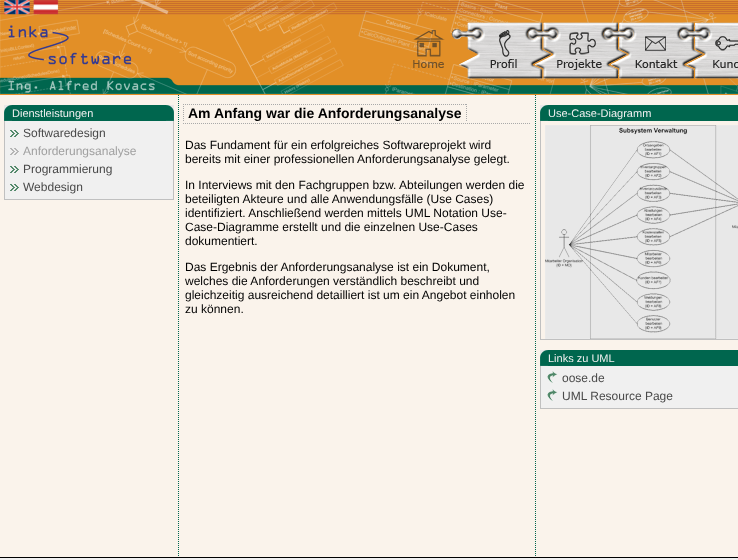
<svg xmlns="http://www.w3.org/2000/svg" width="738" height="560">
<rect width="100%" height="100%" fill="#faf3eb"/>
<rect y="94" width="738" height="1" fill="#e28f27"/>
<image x="0" y="0" width="32" height="14" href="media/1.png"/>
<image x="32" y="0" width="28" height="14" href="media/2.png"/>
<image x="60" y="0" width="114" height="14" href="media/3.png"/>
<image x="174" y="0" width="564" height="14" href="media/4.png"/>
<image x="0" y="14" width="212" height="63" href="media/5.png"/>
<image x="212" y="14" width="526" height="8" href="media/6.png"/>
<image x="0" y="77" width="212" height="17" href="media/7.png"/>
<image x="212" y="22" width="180" height="72" href="media/8.png"/>
<image x="392" y="22" width="84" height="57" href="media/9.png"/>
<image x="476" y="22" width="75" height="57" href="media/10.png"/>
<image x="551" y="22" width="76" height="57" href="media/11.png"/>
<image x="627" y="22" width="76" height="57" href="media/12.png"/>
<image x="703" y="22" width="35" height="57" href="media/13.png"/>
<image x="392" y="79" width="346" height="15" href="media/14.png"/>
<rect x="5" y="121" width="168" height="78" fill="#f0f0f0"/>
<image x="4" y="105" width="8" height="16" href="media/15.png"/>
<rect x="12" y="105" width="154" height="16" fill="#00664e"/>
<text x="12" y="117" style="font-family:Liberation Sans;font-size:11px;fill:#f0f0f0">Dienstleistungen</text>
<image x="166" y="105" width="8" height="16" href="media/16.png"/>
<rect x="173" y="121" width="1" height="79" fill="#c0c0c0"/>
<rect x="4" y="199" width="170" height="1" fill="#c0c0c0"/>
<rect x="4" y="121" width="1" height="79" fill="#c0c0c0"/>
<image x="10" y="130" width="9" height="7" href="media/17.png"/>
<text x="23" y="137" style="font-family:Liberation Sans;font-size:12px;fill:#494949">Softwaredesign</text>
<image x="10" y="148" width="9" height="7" href="media/18.png"/>
<text x="23" y="155" style="font-family:Liberation Sans;font-size:12px;fill:#a0a0a0">Anforderungsanalyse</text>
<image x="10" y="166" width="9" height="7" href="media/17.png"/>
<text x="23" y="173" style="font-family:Liberation Sans;font-size:12px;fill:#494949">Programmierung</text>
<image x="10" y="184" width="9" height="7" href="media/17.png"/>
<text x="23" y="191" style="font-family:Liberation Sans;font-size:12px;fill:#494949">Webdesign</text>
<path d="M535.5 95v462" fill="none" stroke="#00664e" stroke-dasharray="1 1"/>
<path d="M178.5 95v462" fill="none" stroke="#00664e" stroke-dasharray="1 1"/>
<path d="M183 123.5h348" fill="none" stroke="#a9a9a9" stroke-dasharray="1 1"/>
<text x="188" y="118" style="font-family:Liberation Sans;font-size:14px;font-weight:bold;fill:#000">Am Anfang war die Anforderungsanalyse</text>
<path d="M183 104.5h284" fill="none" stroke="#a9a9a9" stroke-dasharray="1 1"/>
<path d="M466.5 104v17" fill="none" stroke="#a9a9a9" stroke-dasharray="1 1"/>
<path d="M183.5 104v17" fill="none" stroke="#a9a9a9" stroke-dasharray="1 1"/>
<text x="185" y="149" style="font-family:Liberation Sans;font-size:12px;fill:#000">Das Fundament für ein erfolgreiches Softwareprojekt wird</text>
<text x="185" y="163" style="font-family:Liberation Sans;font-size:12px;fill:#000">bereits mit einer professionellen Anforderungsanalyse gelegt.</text>
<text x="185" y="189" style="font-family:Liberation Sans;font-size:12px;fill:#000">In Interviews mit den Fachgruppen bzw. Abteilungen werden die</text>
<text x="185" y="203" style="font-family:Liberation Sans;font-size:12px;fill:#000">beteiligten Akteure und alle Anwendungsfälle (Use Cases)</text>
<text x="185" y="217" style="font-family:Liberation Sans;font-size:12px;fill:#000">identifiziert. Anschließend werden mittels UML Notation Use-</text>
<text x="185" y="231" style="font-family:Liberation Sans;font-size:12px;fill:#000">Case-Diagramme erstellt und die einzelnen Use-Cases</text>
<text x="185" y="245" style="font-family:Liberation Sans;font-size:12px;fill:#000">dokumentiert.</text>
<text x="185" y="271" style="font-family:Liberation Sans;font-size:12px;fill:#000">Das Ergebnis der Anforderungsanalyse ist ein Dokument,</text>
<text x="185" y="285" style="font-family:Liberation Sans;font-size:12px;fill:#000">welches die Anforderungen verständlich beschreibt und</text>
<text x="185" y="299" style="font-family:Liberation Sans;font-size:12px;fill:#000">gleichzeitig ausreichend detailliert ist um ein Angebot einholen</text>
<text x="185" y="313" style="font-family:Liberation Sans;font-size:12px;fill:#000">zu können.</text>
<image x="540" y="105" width="8" height="16" href="media/15.png"/>
<rect x="548" y="105" width="190" height="16" fill="#00664e"/>
<text x="548" y="117" style="font-family:Liberation Sans;font-size:11px;fill:#f0f0f0">Use-Case-Diagramm</text>
<rect x="540" y="339" width="198" height="1" fill="#c0c0c0"/>
<rect x="540" y="121" width="1" height="219" fill="#c0c0c0"/>
<image x="545" y="125" width="193" height="214" href="media/19.png"/>
<rect x="541" y="366" width="197" height="42" fill="#f0f0f0"/>
<image x="540" y="350" width="8" height="16" href="media/15.png"/>
<rect x="548" y="350" width="190" height="16" fill="#00664e"/>
<text x="548" y="362" style="font-family:Liberation Sans;font-size:11px;fill:#f0f0f0">Links zu UML</text>
<rect x="540" y="408" width="198" height="1" fill="#c0c0c0"/>
<rect x="540" y="366" width="1" height="43" fill="#c0c0c0"/>
<image x="547" y="371" width="11" height="12" href="media/20.png"/>
<text x="562" y="382" style="font-family:Liberation Sans;font-size:12px;fill:#494949">oose.de</text>
<image x="547" y="389" width="11" height="12" href="media/20.png"/>
<text x="562" y="400" style="font-family:Liberation Sans;font-size:12px;fill:#494949">UML Resource Page</text>
<rect y="558" width="738" height="2" fill="#f0f0f0"/>
<rect y="557" width="738" height="1" fill="#000"/>
</svg>
